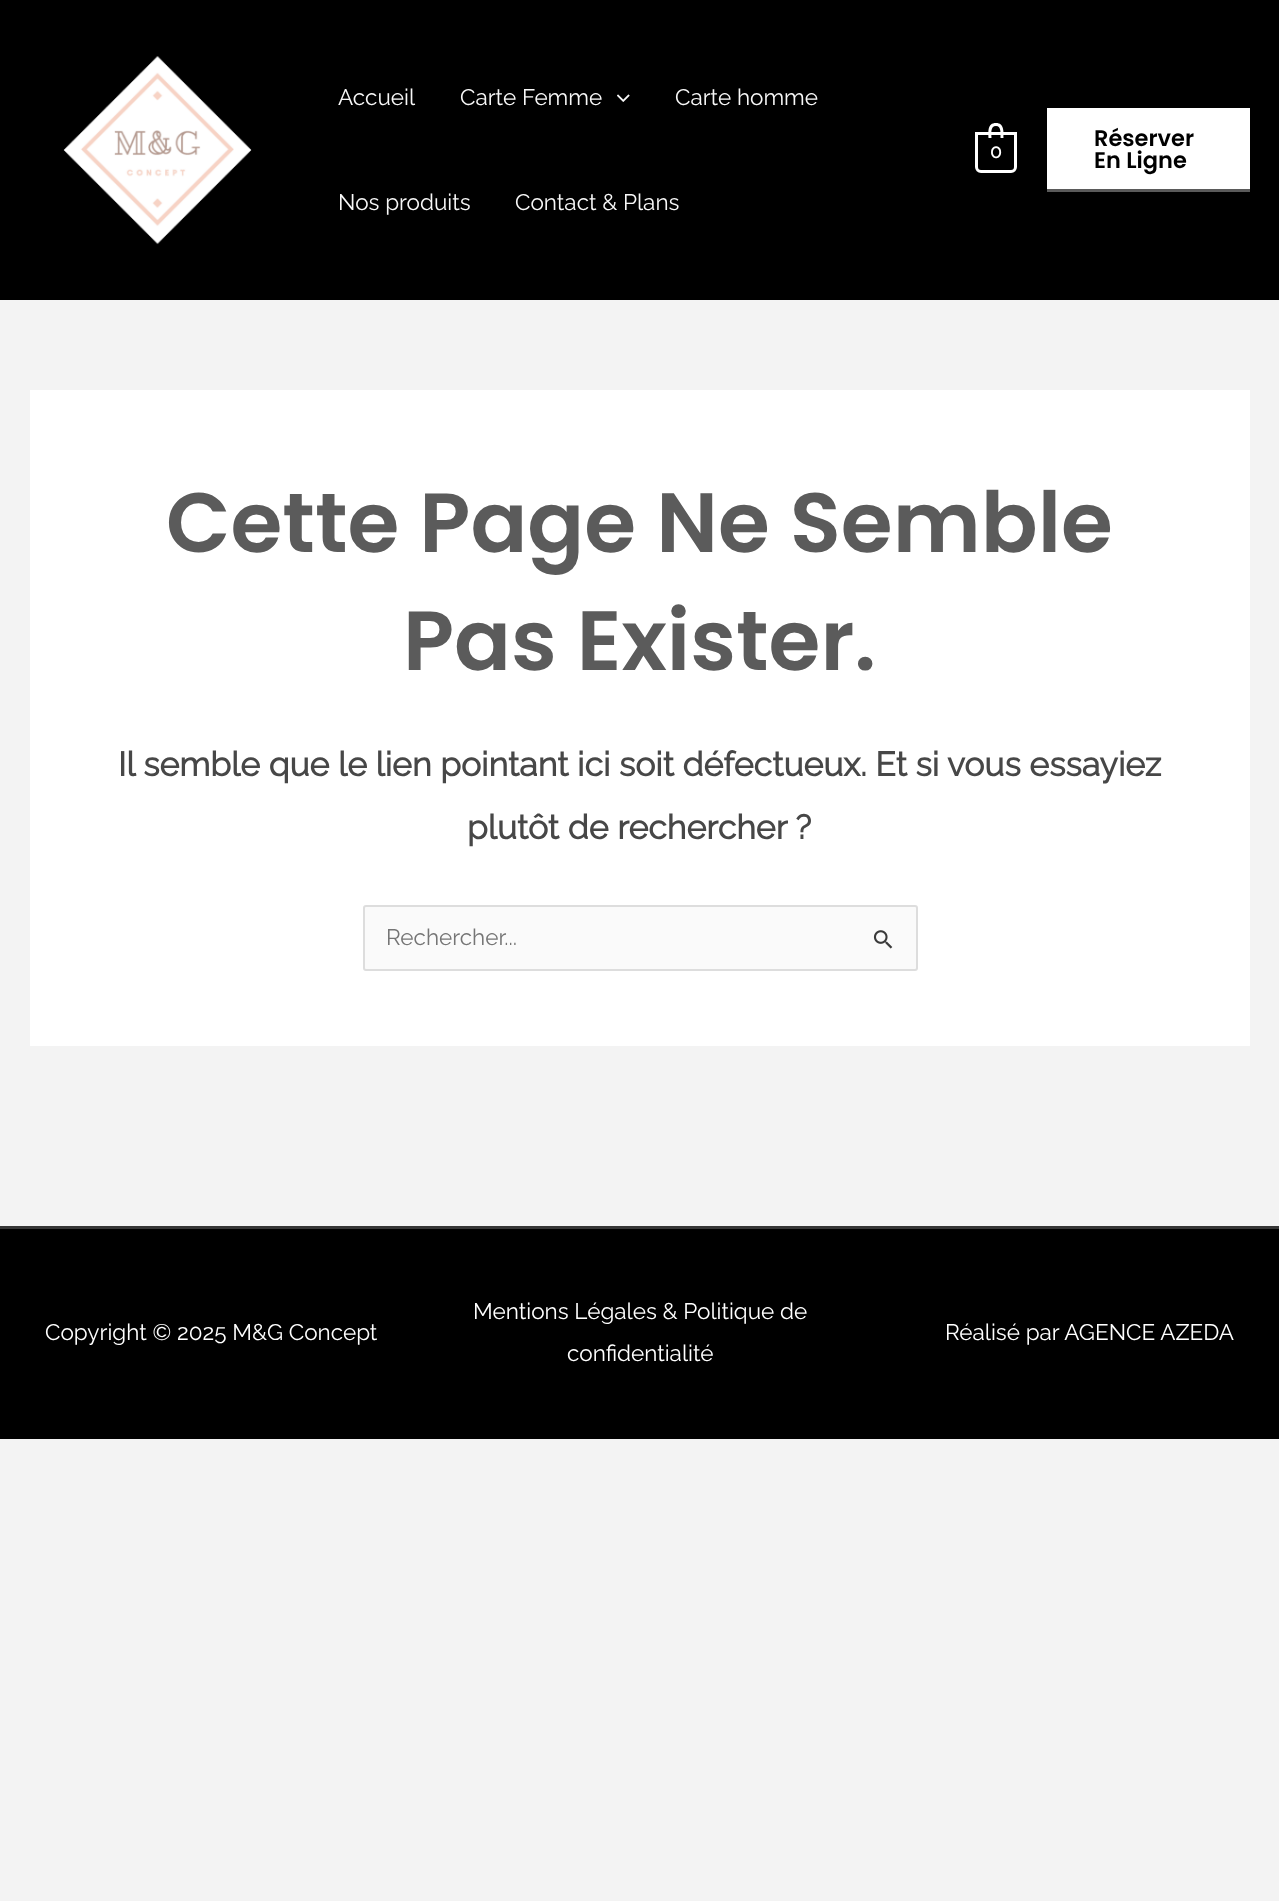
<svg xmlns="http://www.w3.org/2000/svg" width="1279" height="1901">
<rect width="100%" height="100%" fill="#f3f3f3"/>
<rect width="1279" height="300" fill="#000"/>
<image x="63" y="56" width="189" height="189" href="media/1.png"/>
<text x="338" y="105" style="font-family:Raleway;font-size:22.5px;font-weight:100;fill:#f8f8f8">Accueil</text>
<text x="460" y="105" style="font-family:Raleway;font-size:22.5px;font-weight:100;fill:#f8f8f8">Carte Femme</text>
<image x="617" y="94" width="13" height="8" href="media/2.png"/>
<text x="675" y="105" style="font-family:Raleway;font-size:22.5px;font-weight:100;fill:#f8f8f8">Carte homme</text>
<text x="338" y="210" style="font-family:Raleway;font-size:22.5px;font-weight:100;fill:#f8f8f8">Nos produits</text>
<text x="515" y="210" style="font-family:Raleway;font-size:22.5px;font-weight:100;fill:#f8f8f8">Contact &amp; Plans</text>
<path d="M976.5 133.5h39v33.5c0 2.5-2 4.5-4.5 4.5h-30c-2.5 0-4.5-2-4.5-4.5z" fill="none" stroke="#fff" stroke-width="3"/>
<path d="M996 123c8.5 0 7.5 9 7.5 15h-15c0-6-1.5-15 7.5-15zm0 3c5.5 0 4.5 8 4.5 12h-9c0-4-1.5-12 4.5-12z" fill="#fff" fill-rule="evenodd"/>
<text x="990" y="158" style="font-family:Raleway;font-size:19px;font-weight:bold;fill:#fff">0</text>
<rect x="1047" y="108" width="203" height="81" fill="#fff"/>
<rect x="1047" y="189" width="203" height="3" fill="#5a5a5a"/>
<text x="1094" y="146" style="font-family:Poppins;font-size:22.5px;font-weight:600;fill:#000">Réserver</text>
<text x="1094" y="168" style="font-family:Poppins;font-size:22.5px;font-weight:600;fill:#000">En Ligne</text>
<rect x="30" y="390" width="1220" height="656" fill="#fff"/>
<text x="166" y="552" style="font-family:Poppins;font-size:84px;font-weight:600;fill:#5b5b5b">Cette Page Ne Semble</text>
<text x="403" y="670" style="font-family:Poppins;font-size:84px;font-weight:600;fill:#5b5b5b">Pas Exister.</text>
<text x="118" y="776" style="font-family:Raleway;font-size:33.75px;font-weight:bold;fill:#474747">Il semble que le lien pointant ici soit défectueux. Et si vous essayiez</text>
<text x="467" y="839" style="font-family:Raleway;font-size:33.75px;font-weight:bold;fill:#474747">plutôt de rechercher ?</text>
<rect x="364" y="906" width="553" height="64" rx="2" fill="#fafafa" stroke="#ddd" stroke-width="2"/>
<text x="386" y="945" style="font-family:Raleway;font-size:22.5px;font-weight:100;fill:#757575">Rechercher...</text>
<image x="873" y="930" width="20" height="19" href="media/3.png"/>
<rect y="1229" width="1279" height="210" fill="#000"/>
<rect y="1226" width="1279" height="3" fill="#363636"/>
<text x="45" y="1340" style="font-family:Raleway;font-size:22.5px;font-weight:100;fill:#fff">Copyright © 2025 M&amp;G Concept</text>
<text x="473" y="1319" style="font-family:Raleway;font-size:22.5px;font-weight:100;fill:#fff">Mentions Légales &amp; Politique de</text>
<text x="567" y="1361" style="font-family:Raleway;font-size:22.5px;font-weight:100;fill:#fff">confidentialité</text>
<text x="945" y="1340" style="font-family:Raleway;font-size:22.5px;font-weight:100;fill:#fff">Réalisé par AGENCE AZEDA</text>
</svg>
